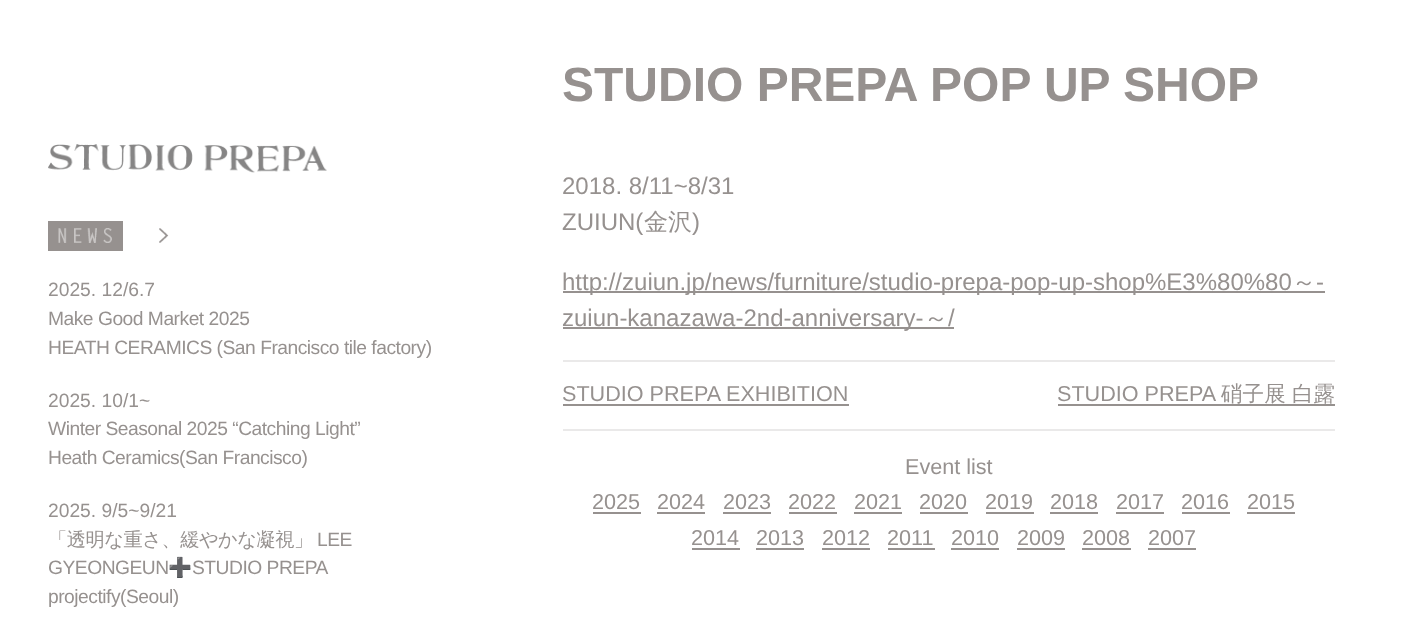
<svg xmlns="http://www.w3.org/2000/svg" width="1405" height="629">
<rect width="100%" height="100%" fill="#fff"/>
<image x="48" y="144" width="279" height="29" href="media/1.png"/>
<rect x="48" y="221" width="75" height="30" fill="#96918f"/>
<image x="58" y="228" width="54" height="15" href="media/2.png"/>
<image x="159" y="228" width="10" height="15" href="media/3.png"/>
<text x="48" y="296" style="font-family:Liberation Sans;font-size:19.25px;fill:#96918f">2025. 12/6.7</text>
<text x="48" y="325" style="font-family:Liberation Sans;font-size:19.25px;letter-spacing:-0.5px;fill:#96918f">Make Good Market 2025</text>
<text x="48" y="354" style="font-family:Liberation Sans;font-size:19.25px;letter-spacing:-0.5px;fill:#96918f">HEATH CERAMICS (San Francisco tile factory)</text>
<text x="48" y="407" style="font-family:Liberation Sans;font-size:19.25px;fill:#96918f">2025. 10/1~</text>
<text x="48" y="435" style="font-family:Liberation Sans;font-size:19.25px;letter-spacing:-0.5px;fill:#96918f">Winter Seasonal 2025 “Catching Light”</text>
<text x="48" y="464" style="font-family:Liberation Sans;font-size:19.25px;letter-spacing:-0.5px;fill:#96918f">Heath Ceramics(San Francisco)</text>
<text x="48" y="517" style="font-family:Liberation Sans;font-size:19.25px;fill:#96918f">2025. 9/5~9/21</text>
<text x="48" y="546" style="font-family:WenQuanYi Zen Hei;font-size:19.25px;font-weight:500;letter-spacing:-0.5px;fill:#96918f">「透明な重さ、緩やかな凝視」</text>
<text x="317" y="546" style="font-family:Liberation Sans;font-size:19.25px;letter-spacing:-0.5px;fill:#96918f">LEE</text>
<text x="48" y="574" style="font-family:Liberation Sans;font-size:19.25px;letter-spacing:-0.5px;fill:#96918f">GYEONGEUN</text>
<text x="168" y="574" style="font-family:Noto Color Emoji;font-size:19.25px;letter-spacing:-0.5px;fill:#96918f">➕</text>
<text x="192" y="574" style="font-family:Liberation Sans;font-size:19.25px;letter-spacing:-0.5px;fill:#96918f">STUDIO PREPA</text>
<text x="48" y="603" style="font-family:Liberation Sans;font-size:19.25px;letter-spacing:-0.5px;fill:#96918f">projectify(Seoul)</text>
<text x="562" y="101" style="font-family:Liberation Sans;font-size:48px;font-weight:bold;fill:#96918f">STUDIO PREPA POP UP SHOP</text>
<text x="562" y="194" style="font-family:Liberation Sans;font-size:24px;fill:#96918f">2018. 8/11~8/31</text>
<text x="562" y="230" style="font-family:Liberation Sans;font-size:24px;fill:#96918f">ZUIUN(</text>
<text x="644" y="230" style="font-family:WenQuanYi Zen Hei;font-size:24px;font-weight:500;fill:#96918f">金沢</text>
<text x="692" y="230" style="font-family:Liberation Sans;font-size:24px;fill:#96918f">)</text>
<rect x="563" y="291" width="762" height="2" fill="#96918f"/>
<text x="562" y="290" style="font-family:Liberation Sans;font-size:24px;fill:#96918f">http://zuiun.jp/news/furniture/studio-prepa-pop-up-shop%E3%80%80</text>
<text x="1292" y="290" style="font-family:WenQuanYi Zen Hei;font-size:24px;font-weight:500;fill:#96918f">～</text>
<text x="1316" y="290" style="font-family:Liberation Sans;font-size:24px;fill:#96918f">-</text>
<rect x="563" y="327" width="391" height="2" fill="#96918f"/>
<text x="562" y="326" style="font-family:Liberation Sans;font-size:24px;fill:#96918f">zuiun-kanazawa-2nd-anniversary-</text>
<text x="924" y="326" style="font-family:WenQuanYi Zen Hei;font-size:24px;font-weight:500;fill:#96918f">～</text>
<text x="948" y="326" style="font-family:Liberation Sans;font-size:24px;fill:#96918f">/</text>
<rect x="563" y="360" width="772" height="2" fill="#eae9e9"/>
<rect x="563" y="429" width="772" height="2" fill="#eae9e9"/>
<text x="562" y="401" style="font-family:Liberation Sans;font-size:21.6px;fill:#96918f">STUDIO PREPA EXHIBITION</text>
<rect x="563" y="404" width="286" height="2" fill="#96918f"/>
<text x="1057" y="401" style="font-family:Liberation Sans;font-size:21.6px;fill:#96918f">STUDIO PREPA</text>
<rect x="1058" y="404" width="277" height="2" fill="#96918f"/>
<text x="1221" y="401" style="font-family:WenQuanYi Zen Hei;font-size:21.6px;font-weight:500;fill:#96918f">硝子展</text>
<text x="1292" y="401" style="font-family:WenQuanYi Zen Hei;font-size:21.6px;font-weight:500;fill:#96918f">白露</text>
<text x="905" y="474" style="font-family:Liberation Sans;font-size:21.6px;fill:#96918f">Event list</text>
<text x="592" y="509" style="font-family:Liberation Sans;font-size:21.6px;fill:#96918f">2025</text>
<rect x="593" y="512" width="48" height="2" fill="#96918f"/>
<text x="657" y="509" style="font-family:Liberation Sans;font-size:21.6px;fill:#96918f">2024</text>
<rect x="657" y="512" width="48" height="2" fill="#96918f"/>
<text x="723" y="509" style="font-family:Liberation Sans;font-size:21.6px;fill:#96918f">2023</text>
<rect x="723" y="512" width="48" height="2" fill="#96918f"/>
<text x="788" y="509" style="font-family:Liberation Sans;font-size:21.6px;fill:#96918f">2022</text>
<rect x="789" y="512" width="48" height="2" fill="#96918f"/>
<text x="854" y="509" style="font-family:Liberation Sans;font-size:21.6px;fill:#96918f">2021</text>
<rect x="854" y="512" width="48" height="2" fill="#96918f"/>
<text x="919" y="509" style="font-family:Liberation Sans;font-size:21.6px;fill:#96918f">2020</text>
<rect x="920" y="512" width="48" height="2" fill="#96918f"/>
<text x="985" y="509" style="font-family:Liberation Sans;font-size:21.6px;fill:#96918f">2019</text>
<rect x="986" y="512" width="48" height="2" fill="#96918f"/>
<text x="1050" y="509" style="font-family:Liberation Sans;font-size:21.6px;fill:#96918f">2018</text>
<rect x="1050" y="512" width="48" height="2" fill="#96918f"/>
<text x="1116" y="509" style="font-family:Liberation Sans;font-size:21.6px;fill:#96918f">2017</text>
<rect x="1116" y="512" width="48" height="2" fill="#96918f"/>
<text x="1181" y="509" style="font-family:Liberation Sans;font-size:21.6px;fill:#96918f">2016</text>
<rect x="1182" y="512" width="48" height="2" fill="#96918f"/>
<text x="1247" y="509" style="font-family:Liberation Sans;font-size:21.6px;fill:#96918f">2015</text>
<rect x="1247" y="512" width="48" height="2" fill="#96918f"/>
<text x="691" y="545" style="font-family:Liberation Sans;font-size:21.6px;fill:#96918f">2014</text>
<rect x="692" y="548" width="48" height="2" fill="#96918f"/>
<text x="756" y="545" style="font-family:Liberation Sans;font-size:21.6px;fill:#96918f">2013</text>
<rect x="756" y="548" width="48" height="2" fill="#96918f"/>
<text x="822" y="545" style="font-family:Liberation Sans;font-size:21.6px;fill:#96918f">2012</text>
<rect x="822" y="548" width="48" height="2" fill="#96918f"/>
<text x="887" y="545" style="font-family:Liberation Sans;font-size:21.6px;fill:#96918f">2011</text>
<rect x="888" y="548" width="47" height="2" fill="#96918f"/>
<text x="951" y="545" style="font-family:Liberation Sans;font-size:21.6px;fill:#96918f">2010</text>
<rect x="951" y="548" width="48" height="2" fill="#96918f"/>
<text x="1017" y="545" style="font-family:Liberation Sans;font-size:21.6px;fill:#96918f">2009</text>
<rect x="1017" y="548" width="48" height="2" fill="#96918f"/>
<text x="1082" y="545" style="font-family:Liberation Sans;font-size:21.6px;fill:#96918f">2008</text>
<rect x="1082" y="548" width="49" height="2" fill="#96918f"/>
<text x="1148" y="545" style="font-family:Liberation Sans;font-size:21.6px;fill:#96918f">2007</text>
<rect x="1148" y="548" width="48" height="2" fill="#96918f"/>
</svg>
